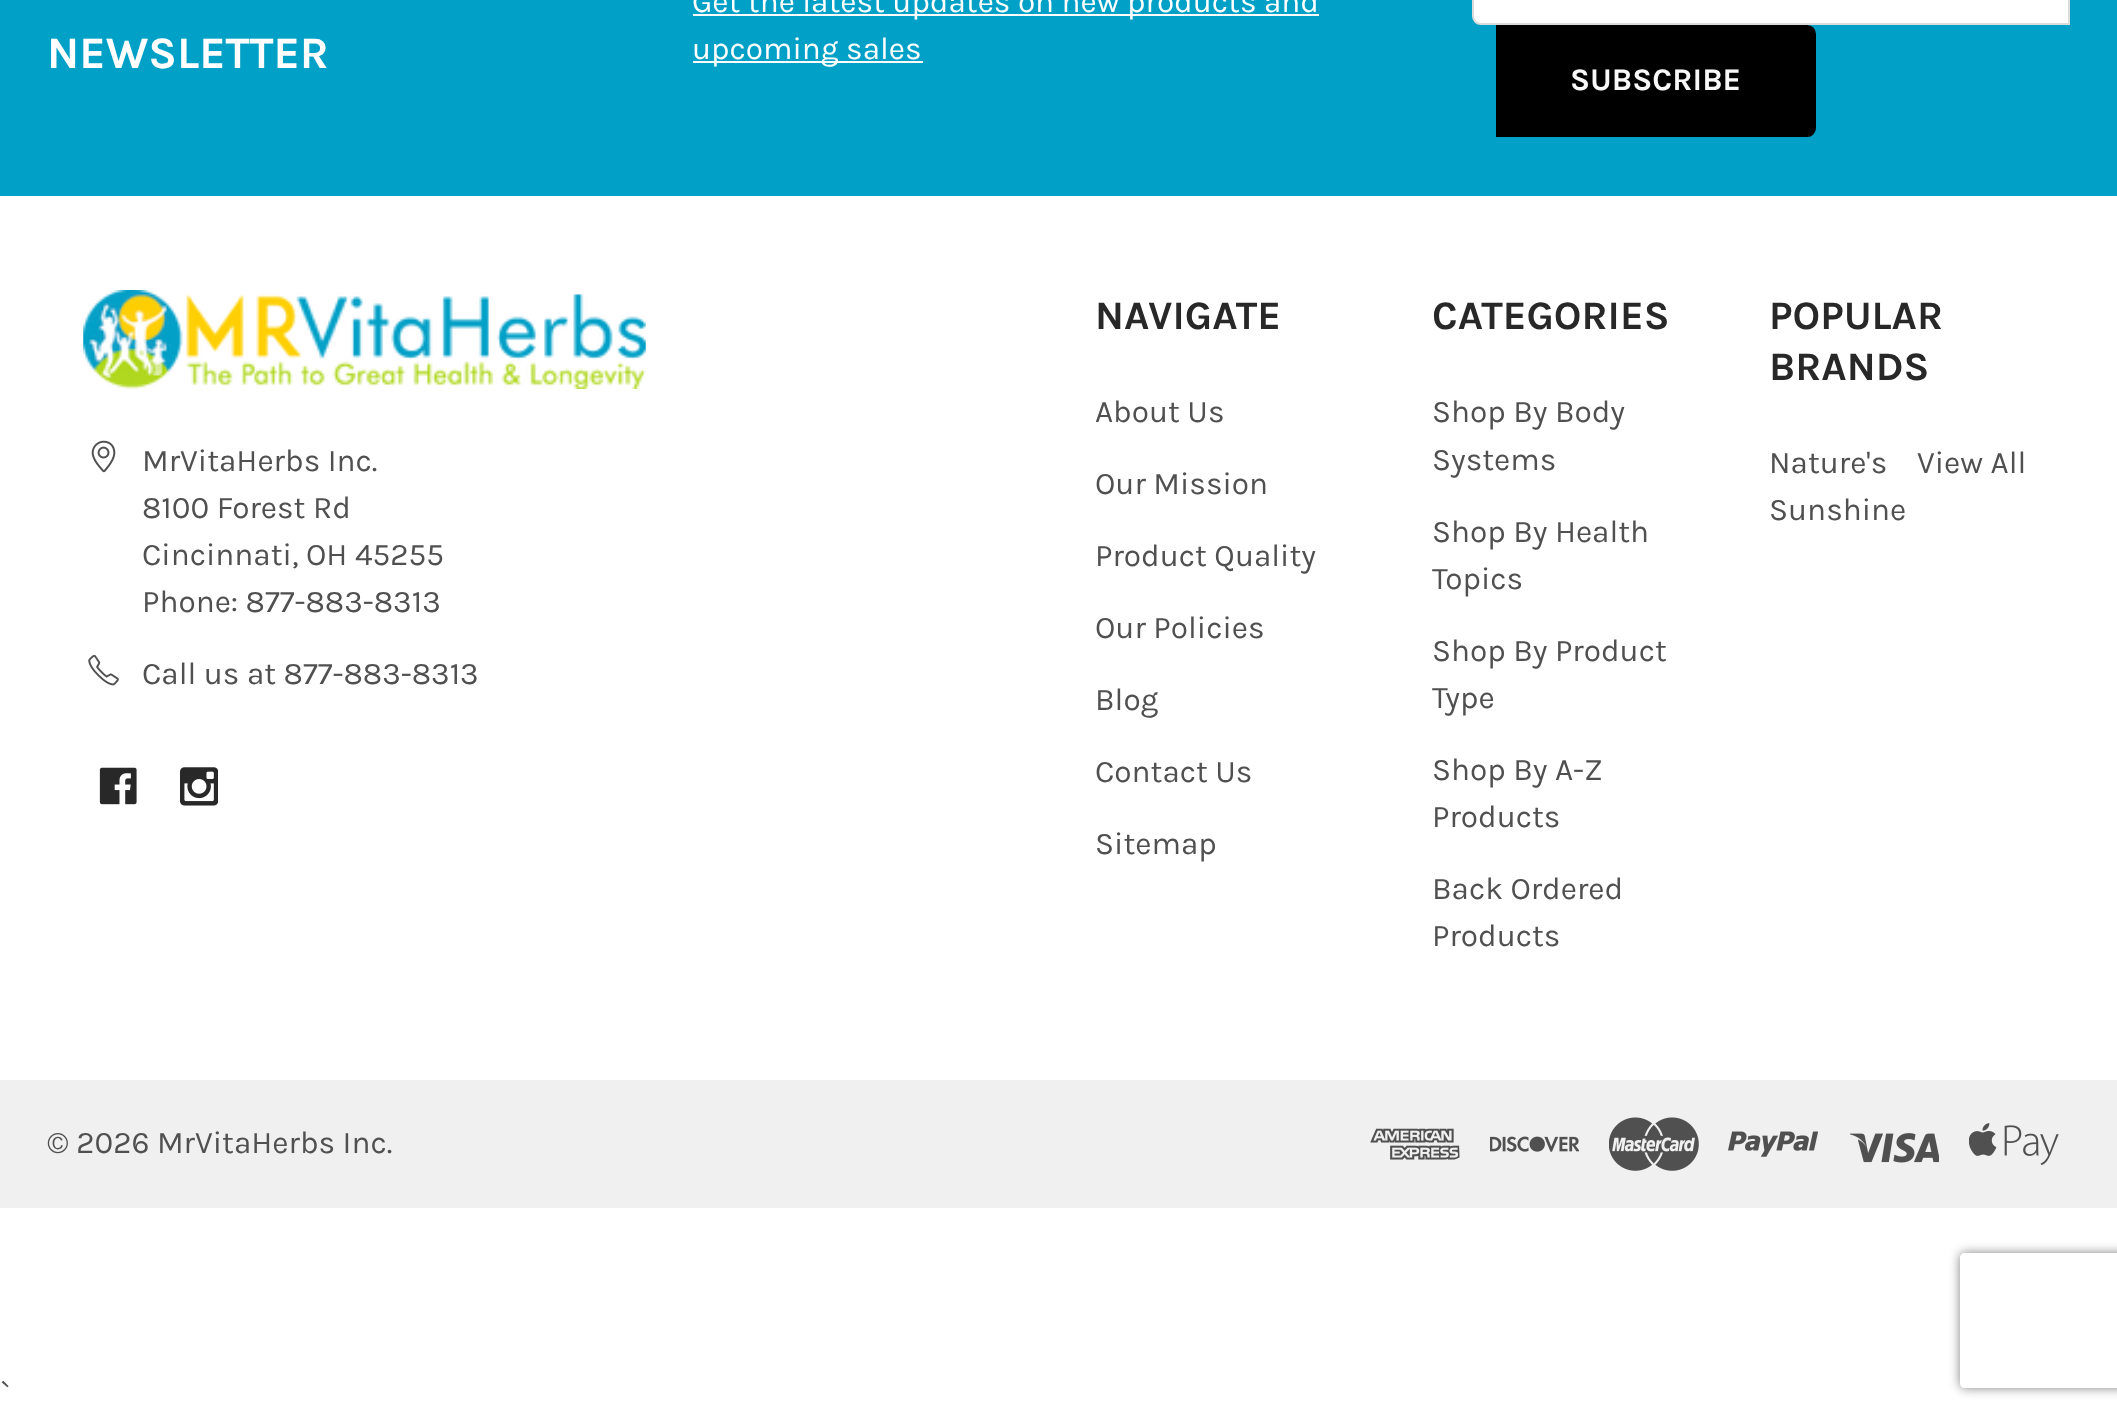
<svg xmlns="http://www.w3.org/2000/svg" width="2117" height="1418">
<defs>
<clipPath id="clip1"><path d="M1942 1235h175v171h-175zm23 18h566c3 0 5 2 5 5v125c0 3-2 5-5 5h-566c-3 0-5-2-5-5v-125c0-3 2-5 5-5z" clip-rule="evenodd"/></clipPath>
</defs>
<rect width="100%" height="100%" fill="#fff"/>
<rect width="2117" height="196" fill="#01a0c7"/>
<text x="47" y="68" style="font-family:Karla;font-size:45px;font-weight:bold;fill:#fff">NEWSLETTER</text>
<rect x="693" y="14" width="626" height="2" fill="#fff"/>
<text x="692" y="12" style="font-family:Karla;font-size:31.5px;fill:#fff">Get the latest updates on new products and</text>
<rect x="693" y="61" width="230" height="2" fill="#fff"/>
<text x="692" y="59" style="font-family:Karla;font-size:31.5px;fill:#fff">upcoming sales</text>
<path d="M1481-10h588v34h-588c-4.5 0-8-3.5-8-8v-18c0-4.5 3.5-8 8-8z" fill="#fff" stroke="#dcdcdc" stroke-width="2"/>
<path d="M1497 26h310c4.5 0 8 3.5 8 8v94c0 4.5-3.5 8-8 8h-310z" fill="#000" stroke="#000" stroke-width="2"/>
<text x="1570" y="90" style="font-family:Karla;font-size:31.5px;font-weight:bold;fill:#f8f8f8">SUBSCRIBE</text>
<text x="1095" y="329" style="font-family:Karla;font-size:40.5px;font-weight:bold;fill:#282828">NAVIGATE</text>
<text x="1095" y="422" style="font-family:Karla;font-size:31.5px;fill:#505050">About Us</text>
<text x="1095" y="494" style="font-family:Karla;font-size:31.5px;fill:#505050">Our Mission</text>
<text x="1095" y="566" style="font-family:Karla;font-size:31.5px;fill:#505050">Product Quality</text>
<text x="1095" y="638" style="font-family:Karla;font-size:31.5px;fill:#505050">Our Policies</text>
<text x="1095" y="710" style="font-family:Karla;font-size:31.5px;fill:#505050">Blog</text>
<text x="1095" y="782" style="font-family:Karla;font-size:31.5px;fill:#505050">Contact Us</text>
<text x="1095" y="854" style="font-family:Karla;font-size:31.5px;fill:#505050">Sitemap</text>
<text x="1432" y="329" style="font-family:Karla;font-size:40.5px;font-weight:bold;fill:#282828">CATEGORIES</text>
<text x="1432" y="422" style="font-family:Karla;font-size:31.5px;fill:#505050">Shop By Body</text>
<text x="1432" y="470" style="font-family:Karla;font-size:31.5px;fill:#505050">Systems</text>
<text x="1432" y="542" style="font-family:Karla;font-size:31.5px;fill:#505050">Shop By Health</text>
<text x="1432" y="589" style="font-family:Karla;font-size:31.5px;fill:#505050">Topics</text>
<text x="1432" y="661" style="font-family:Karla;font-size:31.5px;fill:#505050">Shop By Product</text>
<text x="1432" y="708" style="font-family:Karla;font-size:31.5px;fill:#505050">Type</text>
<text x="1432" y="780" style="font-family:Karla;font-size:31.5px;fill:#505050">Shop By A-Z</text>
<text x="1432" y="827" style="font-family:Karla;font-size:31.5px;fill:#505050">Products</text>
<text x="1432" y="899" style="font-family:Karla;font-size:31.5px;fill:#505050">Back Ordered</text>
<text x="1432" y="946" style="font-family:Karla;font-size:31.5px;fill:#505050">Products</text>
<text x="1769" y="329" style="font-family:Karla;font-size:40.5px;font-weight:bold;fill:#282828">POPULAR</text>
<text x="1769" y="380" style="font-family:Karla;font-size:40.5px;font-weight:bold;fill:#282828">BRANDS</text>
<text x="1769" y="473" style="font-family:Karla;font-size:31.5px;fill:#505050">Nature's</text>
<text x="1769" y="520" style="font-family:Karla;font-size:31.5px;fill:#505050">Sunshine</text>
<text x="1917" y="473" style="font-family:Karla;font-size:31.5px;fill:#505050">View All</text>
<image x="83" y="290" width="563" height="99" href="media/1.png"/>
<image x="91" y="440" width="25" height="33" href="media/2.png"/>
<text x="142" y="471" style="font-family:Karla;font-size:31.5px;fill:#505050">MrVitaHerbs Inc.</text>
<text x="142" y="518" style="font-family:Karla;font-size:31.5px;fill:#505050">8100 Forest Rd</text>
<text x="142" y="565" style="font-family:Karla;font-size:31.5px;fill:#505050">Cincinnati, OH 45255</text>
<text x="142" y="612" style="font-family:Karla;font-size:31.5px;fill:#505050">Phone: 877-883-8313</text>
<image x="88" y="654" width="31" height="32" href="media/3.png"/>
<text x="142" y="684" style="font-family:Karla;font-size:31.5px;fill:#505050">Call us at 877-883-8313</text>
<image x="99" y="767" width="38" height="38" href="media/4.png"/>
<image x="180" y="767" width="38" height="39" href="media/5.png"/>
<rect y="1080" width="2117" height="128" fill="#f0f0f0"/>
<text x="47" y="1153" style="font-family:Karla;font-size:31.5px;fill:#505050">© 2026 MrVitaHerbs Inc.</text>
<image x="1370" y="1128" width="90" height="32" href="media/6.png"/>
<image x="1490" y="1136" width="89" height="16" href="media/7.png"/>
<image x="1609" y="1117" width="90" height="54" href="media/8.png"/>
<image x="1728" y="1131" width="90" height="26" href="media/9.png"/>
<image x="1850" y="1133" width="89" height="30" href="media/10.png"/>
<image x="1969" y="1123" width="90" height="43" href="media/11.png"/>
<text x="0" y="1405" style="font-family:Karla;font-size:31.5px;fill:#505050">`</text>
<g clip-path="url(#clip1)">
<rect x="1960" y="1253" width="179" height="135" rx="5" fill="#808080" filter="blur(5.5px)"/>
</g>
</svg>
